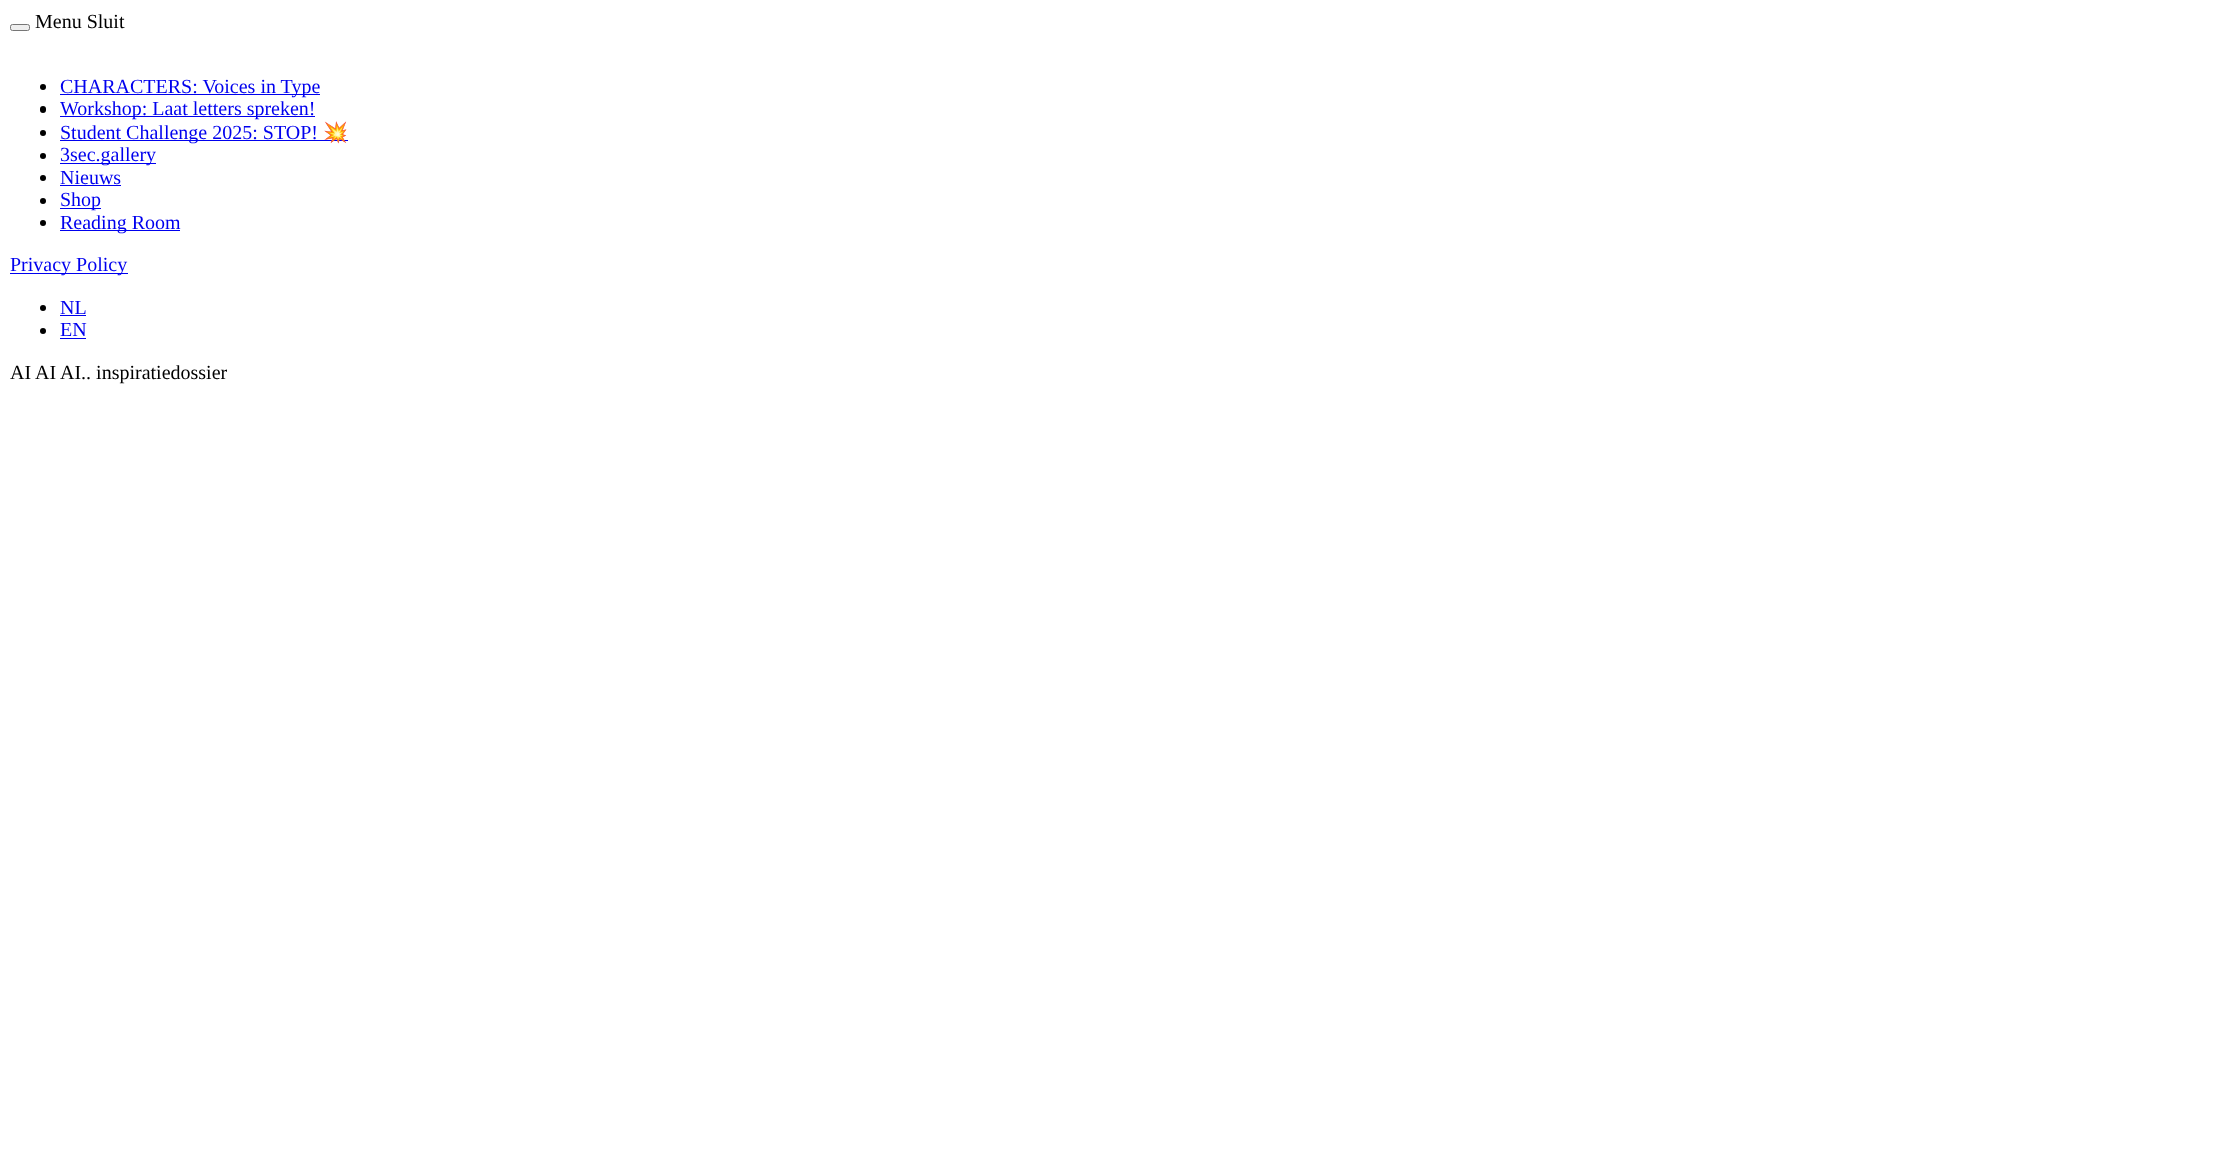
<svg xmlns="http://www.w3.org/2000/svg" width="2214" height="1155">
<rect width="100%" height="100%" fill="#fff"/>
<rect x="10.5" y="24.5" width="19" height="6" rx="2" fill="#efefef" stroke="#767676"/>
<text x="35" y="28" style="font-family:Liberation Serif;font-size:20px;fill:#000">Menu Sluit</text>
<circle cx="43" cy="87" r="3" fill="#000"/>
<rect x="60" y="94" width="260" height="1" fill="#00e"/>
<text x="60" y="93" style="font-family:Liberation Serif;font-size:20px;fill:#00e">CHARACTERS: Voices in Type</text>
<rect x="40" y="106" width="6" height="7" rx="3" fill="#000"/>
<rect x="60" y="116" width="255" height="1" fill="#00e"/>
<text x="60" y="115" style="font-family:Liberation Serif;font-size:20px;fill:#00e">Workshop: Laat letters spreken!</text>
<circle cx="43" cy="133" r="3" fill="#000"/>
<rect x="60" y="140" width="288" height="1" fill="#00e"/>
<text x="60" y="139" style="font-family:Liberation Serif;font-size:20px;fill:#00e">Student Challenge 2025: STOP!</text>
<text x="323" y="139" style="font-family:Noto Color Emoji;font-size:20px;fill:#00e">💥</text>
<circle cx="43" cy="156" r="3" fill="#000"/>
<rect x="60" y="163" width="96" height="1" fill="#00e"/>
<text x="60" y="161" style="font-family:Liberation Serif;font-size:20px;fill:#00e">3sec.gallery</text>
<circle cx="43" cy="178" r="3" fill="#000"/>
<text x="60" y="184" style="font-family:Liberation Serif;font-size:20px;fill:#00e">Nieuws</text>
<rect x="60" y="185" width="61" height="1" fill="#00e"/>
<circle cx="43" cy="201" r="3" fill="#000"/>
<rect x="60" y="208" width="41" height="1" fill="#00e"/>
<text x="60" y="206" style="font-family:Liberation Serif;font-size:20px;fill:#00e">Shop</text>
<circle cx="43" cy="223" r="3" fill="#000"/>
<rect x="60" y="230" width="120" height="1" fill="#00e"/>
<text x="60" y="229" style="font-family:Liberation Serif;font-size:20px;fill:#00e">Reading Room</text>
<rect x="10" y="273" width="118" height="1" fill="#00e"/>
<text x="10" y="271" style="font-family:Liberation Serif;font-size:20px;fill:#00e">Privacy Policy</text>
<circle cx="43" cy="308" r="3" fill="#000"/>
<text x="60" y="314" style="font-family:Liberation Serif;font-size:20px;fill:#00e">NL</text>
<rect x="60" y="315" width="26" height="1" fill="#00e"/>
<circle cx="43" cy="331" r="3" fill="#000"/>
<text x="60" y="336" style="font-family:Liberation Serif;font-size:20px;fill:#00e">EN</text>
<rect x="60" y="338" width="26" height="1" fill="#00e"/>
<text x="10" y="379" style="font-family:Liberation Serif;font-size:20px;fill:#000">AI AI AI.. inspiratiedossier</text>
</svg>
